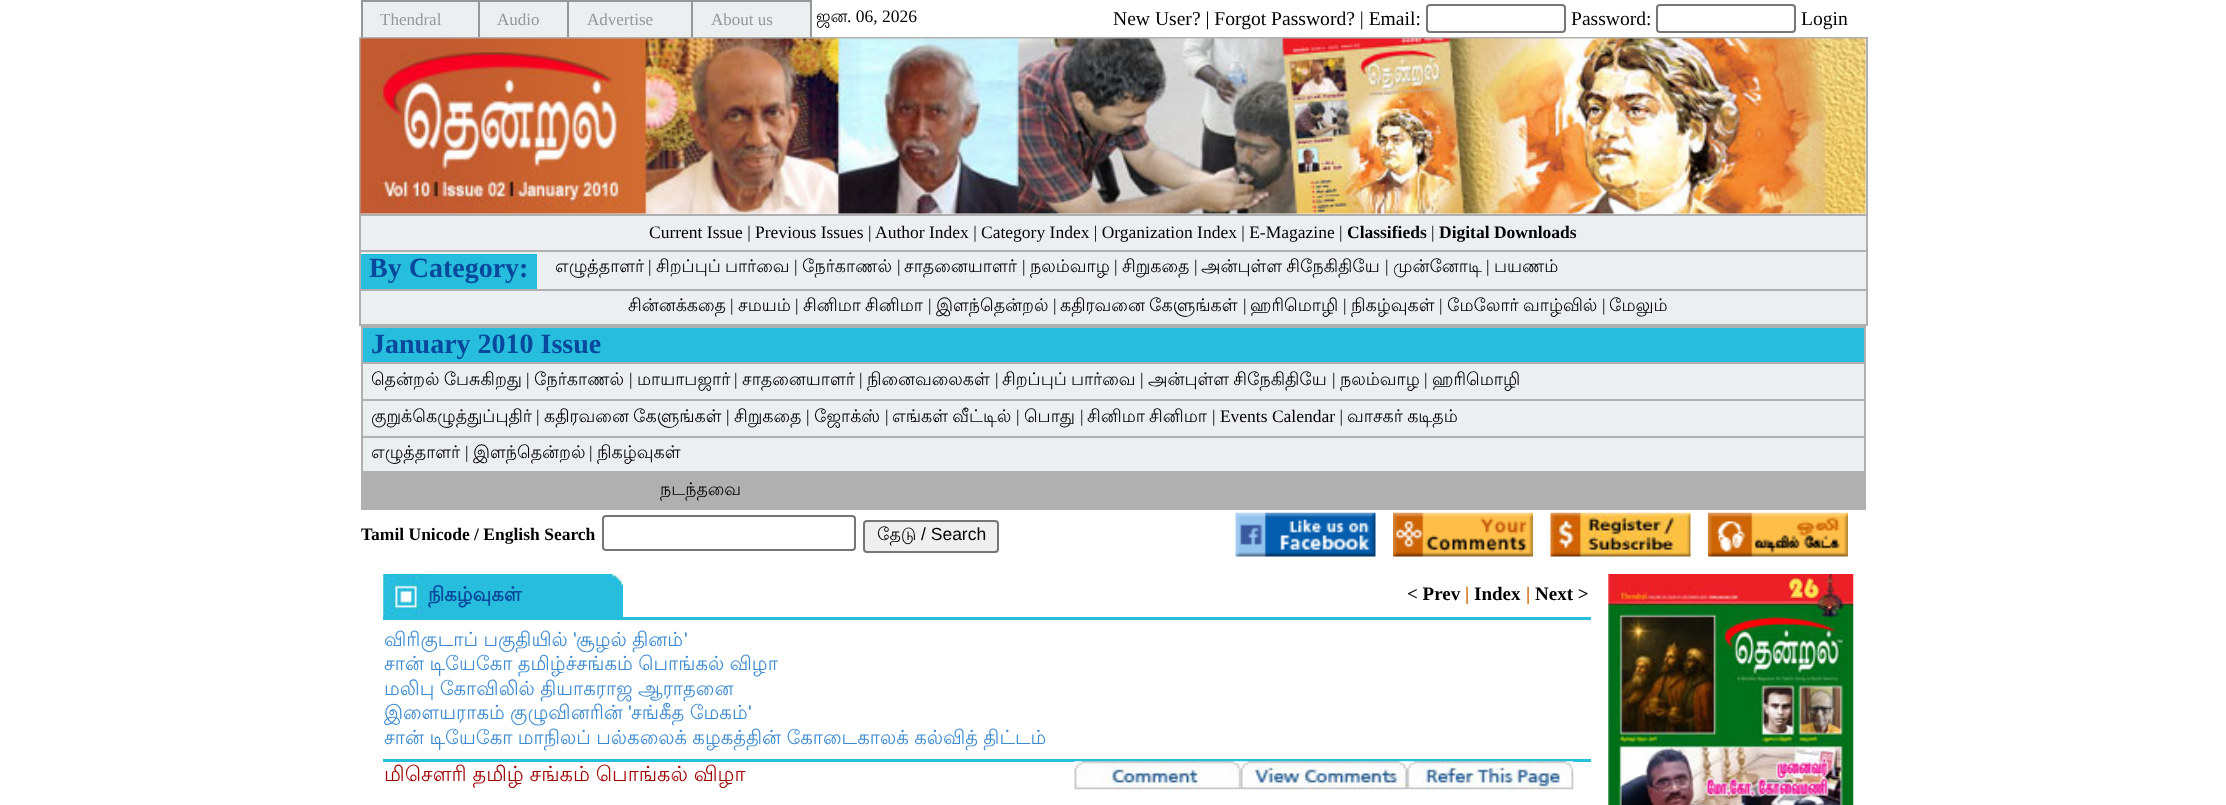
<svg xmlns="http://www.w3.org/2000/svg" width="2226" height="805">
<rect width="100%" height="100%" fill="#fff"/>
<rect x="363" y="2" width="447" height="35" fill="#ebeff0"/>
<rect x="361" width="451" height="2" fill="#94979b"/>
<rect x="478" width="2" height="37" fill="#94979b"/>
<rect x="361" width="2" height="37" fill="#94979b"/>
<text x="380" y="25" style="font-family:Liberation Serif;font-size:17px;fill:#94979b">Thendral</text>
<rect x="567" width="2" height="37" fill="#94979b"/>
<text x="497" y="25" style="font-family:Liberation Serif;font-size:17px;fill:#94979b">Audio</text>
<rect x="691" width="2" height="37" fill="#94979b"/>
<text x="587" y="25" style="font-family:Liberation Serif;font-size:17px;fill:#94979b">Advertise</text>
<rect x="810" width="2" height="37" fill="#94979b"/>
<text x="711" y="25" style="font-family:Liberation Serif;font-size:17px;fill:#94979b">About us</text>
<text x="816" y="22" style="font-family:Lohit Tamil;font-size:17.5px;fill:#000">ஜன</text>
<text x="847" y="22" style="font-family:Liberation Serif;font-size:17.5px;fill:#000">. 06, 2026</text>
<text x="1113" y="25" style="font-family:Liberation Serif;font-size:19.6px;fill:#000">New User? | Forgot Password? | Email:</text>
<rect x="1427" y="5" width="138" height="27" rx="3" fill="none" stroke="#767676" stroke-width="2"/>
<text x="1571" y="25" style="font-family:Liberation Serif;font-size:19.6px;fill:#000">Password:</text>
<rect x="1657" y="5" width="138" height="27" rx="3" fill="none" stroke="#767676" stroke-width="2"/>
<text x="1801" y="25" style="font-family:Liberation Serif;font-size:19.6px;fill:#000">Login</text>
<rect x="361" y="39" width="1505" height="285" fill="#ebeff0"/>
<rect x="359" y="37" width="1508" height="2" fill="#b0b0b0"/>
<rect x="361" y="214" width="1506" height="2" fill="#b0b0b0"/>
<rect x="361" y="250" width="1506" height="2" fill="#b0b0b0"/>
<rect x="361" y="289" width="1506" height="2" fill="#b0b0b0"/>
<rect x="1866" y="37" width="2" height="289" fill="#b0b0b0"/>
<rect x="359" y="324" width="1508" height="2" fill="#b0b0b0"/>
<rect x="359" y="37" width="2" height="289" fill="#b0b0b0"/>
<image x="360" y="38" width="1506" height="176" href="media/1.png"/>
<text x="649" y="238" style="font-family:Liberation Serif;font-size:17.5px;fill:#000">Current Issue | Previous Issues</text>
<text x="868" y="238" style="font-family:Liberation Serif;font-size:17.5px;fill:#000">|</text>
<text x="875" y="238" style="font-family:Liberation Serif;font-size:17.5px;fill:#000">Author Index | Category Index | Organization Index | E-Magazine |</text>
<text x="1347" y="238" style="font-family:Liberation Serif;font-size:17.5px;font-weight:bold;fill:#000">Classifieds</text>
<text x="1431" y="238" style="font-family:Liberation Serif;font-size:17.5px;fill:#000">|</text>
<text x="1439" y="238" style="font-family:Liberation Serif;font-size:17.5px;font-weight:bold;fill:#000">Digital Downloads</text>
<rect x="361" y="254" width="176" height="35" fill="#27bedd"/>
<text x="369" y="277" style="font-family:Liberation Serif;font-size:28px;font-weight:bold;fill:#08499d">By Category:</text>
<text x="555" y="272" style="font-family:Lohit Tamil;font-size:17.5px;fill:#000">எழுத்தாளர்</text>
<text x="648" y="272" style="font-family:Liberation Serif;font-size:17.5px;fill:#000">|</text>
<text x="656" y="272" word-spacing="-1" style="font-family:Lohit Tamil;font-size:17.5px;fill:#000">சிறப்புப் பார்வை</text>
<text x="794" y="272" style="font-family:Liberation Serif;font-size:17.5px;fill:#000">|</text>
<text x="802" y="272" style="font-family:Lohit Tamil;font-size:17.5px;fill:#000">நேர்காணல்</text>
<text x="897" y="272" style="font-family:Liberation Serif;font-size:17.5px;fill:#000">|</text>
<text x="904" y="272" style="font-family:Lohit Tamil;font-size:17.5px;fill:#000">சாதனையாளர்</text>
<text x="1022" y="272" style="font-family:Liberation Serif;font-size:17.5px;fill:#000">|</text>
<text x="1030" y="272" style="font-family:Lohit Tamil;font-size:17.5px;fill:#000">நலம்வாழ</text>
<text x="1114" y="272" style="font-family:Liberation Serif;font-size:17.5px;fill:#000">|</text>
<text x="1122" y="272" style="font-family:Lohit Tamil;font-size:17.5px;fill:#000">சிறுகதை</text>
<text x="1194" y="272" style="font-family:Liberation Serif;font-size:17.5px;fill:#000">|</text>
<text x="1201" y="272" word-spacing="-1" style="font-family:Lohit Tamil;font-size:17.5px;fill:#000">அன்புள்ள சிநேகிதியே</text>
<text x="1385" y="272" style="font-family:Liberation Serif;font-size:17.5px;fill:#000">|</text>
<text x="1393" y="272" style="font-family:Lohit Tamil;font-size:17.5px;fill:#000">முன்னோடி</text>
<text x="1486" y="272" style="font-family:Liberation Serif;font-size:17.5px;fill:#000">|</text>
<text x="1494" y="272" style="font-family:Lohit Tamil;font-size:17.5px;fill:#000">பயணம்</text>
<text x="628" y="311" style="font-family:Lohit Tamil;font-size:17.5px;fill:#000">சின்னக்கதை</text>
<text x="730" y="311" style="font-family:Liberation Serif;font-size:17.5px;fill:#000">|</text>
<text x="738" y="311" style="font-family:Lohit Tamil;font-size:17.5px;fill:#000">சமயம்</text>
<text x="795" y="311" style="font-family:Liberation Serif;font-size:17.5px;fill:#000">|</text>
<text x="803" y="311" word-spacing="-1" style="font-family:Lohit Tamil;font-size:17.5px;fill:#000">சினிமா சினிமா</text>
<text x="928" y="311" style="font-family:Liberation Serif;font-size:17.5px;fill:#000">|</text>
<text x="936" y="311" style="font-family:Lohit Tamil;font-size:17.5px;fill:#000">இளந்தென்றல்</text>
<text x="1053" y="311" style="font-family:Liberation Serif;font-size:17.5px;fill:#000">|</text>
<text x="1060" y="311" word-spacing="-1" style="font-family:Lohit Tamil;font-size:17.5px;fill:#000">கதிரவனை கேளுங்கள்</text>
<text x="1243" y="311" style="font-family:Liberation Serif;font-size:17.5px;fill:#000">|</text>
<text x="1250" y="311" style="font-family:Lohit Tamil;font-size:17.5px;fill:#000">ஹரிமொழி</text>
<text x="1343" y="311" style="font-family:Liberation Serif;font-size:17.5px;fill:#000">|</text>
<text x="1351" y="311" style="font-family:Lohit Tamil;font-size:17.5px;fill:#000">நிகழ்வுகள்</text>
<text x="1439" y="311" style="font-family:Liberation Serif;font-size:17.5px;fill:#000">|</text>
<text x="1447" y="311" word-spacing="-1" style="font-family:Lohit Tamil;font-size:17.5px;fill:#000">மேலோர் வாழ்வில்</text>
<text x="1602" y="311" style="font-family:Liberation Serif;font-size:17.5px;fill:#000">|</text>
<text x="1609" y="311" style="font-family:Lohit Tamil;font-size:17.5px;fill:#000">மேலும்</text>
<rect x="363" y="364" width="1501" height="107" fill="#ebeff0"/>
<rect x="361" y="326" width="1505" height="2" fill="#b0b0b0"/>
<rect x="362" y="362" width="1504" height="2" fill="#b0b0b0"/>
<rect x="362" y="399" width="1504" height="2" fill="#b0b0b0"/>
<rect x="362" y="436" width="1504" height="2" fill="#b0b0b0"/>
<rect x="1864" y="326" width="2" height="147" fill="#b0b0b0"/>
<rect x="361" y="471" width="1505" height="4" fill="#b0b0b0"/>
<rect x="361" y="326" width="2" height="147" fill="#b0b0b0"/>
<rect x="363" y="328" width="1501" height="34" fill="#27bedd"/>
<text x="371" y="353" style="font-family:Liberation Serif;font-size:28px;font-weight:bold;fill:#08499d">January 2010 Issue</text>
<text x="371" y="385" word-spacing="-1" style="font-family:Lohit Tamil;font-size:17.5px;fill:#000">தென்றல் பேசுகிறது</text>
<text x="526" y="385" style="font-family:Liberation Serif;font-size:17.5px;fill:#000">|</text>
<text x="534" y="385" style="font-family:Lohit Tamil;font-size:17.5px;fill:#000">நேர்காணல்</text>
<text x="629" y="385" style="font-family:Liberation Serif;font-size:17.5px;fill:#000">|</text>
<text x="637" y="385" style="font-family:Lohit Tamil;font-size:17.5px;fill:#000">மாயாபஜார்</text>
<text x="734" y="385" style="font-family:Liberation Serif;font-size:17.5px;fill:#000">|</text>
<text x="742" y="385" style="font-family:Lohit Tamil;font-size:17.5px;fill:#000">சாதனையாளர்</text>
<text x="859" y="385" style="font-family:Liberation Serif;font-size:17.5px;fill:#000">|</text>
<text x="867" y="385" style="font-family:Lohit Tamil;font-size:17.5px;fill:#000">நினைவலைகள்</text>
<text x="995" y="385" style="font-family:Liberation Serif;font-size:17.5px;fill:#000">|</text>
<text x="1002" y="385" word-spacing="-1" style="font-family:Lohit Tamil;font-size:17.5px;fill:#000">சிறப்புப் பார்வை</text>
<text x="1140" y="385" style="font-family:Liberation Serif;font-size:17.5px;fill:#000">|</text>
<text x="1148" y="385" word-spacing="-1" style="font-family:Lohit Tamil;font-size:17.5px;fill:#000">அன்புள்ள சிநேகிதியே</text>
<text x="1332" y="385" style="font-family:Liberation Serif;font-size:17.5px;fill:#000">|</text>
<text x="1340" y="385" style="font-family:Lohit Tamil;font-size:17.5px;fill:#000">நலம்வாழ</text>
<text x="1424" y="385" style="font-family:Liberation Serif;font-size:17.5px;fill:#000">|</text>
<text x="1432" y="385" style="font-family:Lohit Tamil;font-size:17.5px;fill:#000">ஹரிமொழி</text>
<text x="371" y="422" style="font-family:Lohit Tamil;font-size:17.5px;fill:#000">குறுக்கெழுத்துப்புதிர்</text>
<text x="536" y="422" style="font-family:Liberation Serif;font-size:17.5px;fill:#000">|</text>
<text x="544" y="422" word-spacing="-1" style="font-family:Lohit Tamil;font-size:17.5px;fill:#000">கதிரவனை கேளுங்கள்</text>
<text x="726" y="422" style="font-family:Liberation Serif;font-size:17.5px;fill:#000">|</text>
<text x="734" y="422" style="font-family:Lohit Tamil;font-size:17.5px;fill:#000">சிறுகதை</text>
<text x="806" y="422" style="font-family:Liberation Serif;font-size:17.5px;fill:#000">|</text>
<text x="814" y="422" style="font-family:Lohit Tamil;font-size:17.5px;fill:#000">ஜோக்ஸ்</text>
<text x="885" y="422" style="font-family:Liberation Serif;font-size:17.5px;fill:#000">|</text>
<text x="892" y="422" word-spacing="-1" style="font-family:Lohit Tamil;font-size:17.5px;fill:#000">எங்கள் வீட்டில்</text>
<text x="1016" y="422" style="font-family:Liberation Serif;font-size:17.5px;fill:#000">|</text>
<text x="1024" y="422" style="font-family:Lohit Tamil;font-size:17.5px;fill:#000">பொது</text>
<text x="1080" y="422" style="font-family:Liberation Serif;font-size:17.5px;fill:#000">|</text>
<text x="1087" y="422" word-spacing="-1" style="font-family:Lohit Tamil;font-size:17.5px;fill:#000">சினிமா சினிமா</text>
<text x="1212" y="422" style="font-family:Liberation Serif;font-size:17.5px;fill:#000">| Events Calendar |</text>
<text x="1347" y="422" word-spacing="-1" style="font-family:Lohit Tamil;font-size:17.5px;fill:#000">வாசகர் கடிதம்</text>
<text x="371" y="458" style="font-family:Lohit Tamil;font-size:17.5px;fill:#000">எழுத்தாளர்</text>
<text x="465" y="458" style="font-family:Liberation Serif;font-size:17.5px;fill:#000">|</text>
<text x="473" y="458" style="font-family:Lohit Tamil;font-size:17.5px;fill:#000">இளந்தென்றல்</text>
<text x="589" y="458" style="font-family:Liberation Serif;font-size:17.5px;fill:#000">|</text>
<text x="597" y="458" style="font-family:Lohit Tamil;font-size:17.5px;fill:#000">நிகழ்வுகள்</text>
<rect x="361" y="508" width="1505" height="2" fill="#b0b0b0"/>
<rect x="361" y="473" width="2" height="36" fill="#b0b0b0"/>
<rect x="363" y="475" width="1503" height="33" fill="#b0b0b0"/>
<text x="660" y="495" style="font-family:Lohit Tamil;font-size:17.5px;fill:#000">நடந்தவை</text>
<text x="361" y="540" style="font-family:Liberation Serif;font-size:17.5px;font-weight:bold;fill:#000">Tamil Unicode / English Search</text>
<rect x="603" y="516" width="252" height="34" rx="3" fill="none" stroke="#767676" stroke-width="2"/>
<rect x="864" y="521" width="134" height="31" rx="3" fill="#efefef" stroke="#767676" stroke-width="2"/>
<text x="877" y="540" style="font-family:Lohit Tamil;font-size:17.5px;fill:#000">தேடு</text>
<text x="921" y="540" style="font-family:Liberation Sans;font-size:17.5px;fill:#000">/ Search</text>
<image x="1235" y="512" width="141" height="45" href="media/2.png"/>
<image x="1393" y="512" width="140" height="45" href="media/3.png"/>
<image x="1550" y="512" width="141" height="45" href="media/4.png"/>
<image x="1708" y="512" width="140" height="45" href="media/5.png"/>
<image x="383" y="574" width="44" height="43" href="media/6.png"/>
<rect x="427" y="574" width="182" height="43" fill="#27bedd"/>
<text x="428" y="601" style="font-family:Lohit Tamil;font-size:19.6px;font-weight:bold;fill:#08499d">நிகழ்வுகள்</text>
<image x="609" y="574" width="14" height="43" href="media/7.png"/>
<text x="1407" y="600" style="font-family:Liberation Serif;font-size:19px;font-weight:bold;fill:#000">&lt; Prev</text>
<text x="1465" y="600" style="font-family:Liberation Serif;font-size:19px;font-weight:bold;fill:#d16200">|</text>
<text x="1474" y="600" style="font-family:Liberation Serif;font-size:19px;font-weight:bold;fill:#000">Index</text>
<text x="1526" y="600" style="font-family:Liberation Serif;font-size:19px;font-weight:bold;fill:#d16200">|</text>
<text x="1535" y="600" style="font-family:Liberation Serif;font-size:19px;font-weight:bold;fill:#000">Next &gt;</text>
<rect x="383" y="617" width="1208" height="3" fill="#27bedd"/>
<text x="384" y="646" word-spacing="-0.5" style="font-family:Lohit Tamil;font-size:19.6px;fill:#3c8ad0">விரிகுடாப் பகுதியில்</text>
<text x="573" y="646" style="font-family:Liberation Sans;font-size:19.6px;fill:#3c8ad0">'</text>
<text x="576" y="646" word-spacing="-0.5" style="font-family:Lohit Tamil;font-size:19.6px;fill:#3c8ad0">சூழல் தினம்</text>
<text x="684" y="646" style="font-family:Liberation Sans;font-size:19.6px;fill:#3c8ad0">'</text>
<text x="384" y="670" word-spacing="-0.5" style="font-family:Lohit Tamil;font-size:19.6px;fill:#3c8ad0">சான் டியேகோ தமிழ்ச்சங்கம் பொங்கல் விழா</text>
<text x="384" y="695" word-spacing="-0.5" style="font-family:Lohit Tamil;font-size:19.6px;fill:#3c8ad0">மலிபு கோவிலில் தியாகராஜ ஆராதனை</text>
<text x="384" y="719" word-spacing="-0.5" style="font-family:Lohit Tamil;font-size:19.6px;fill:#3c8ad0">இளையராகம் குழுவினரின்</text>
<text x="628" y="719" style="font-family:Liberation Sans;font-size:19.6px;fill:#3c8ad0">'</text>
<text x="631" y="719" word-spacing="-0.5" style="font-family:Lohit Tamil;font-size:19.6px;fill:#3c8ad0">சங்கீத மேகம்</text>
<text x="748" y="719" style="font-family:Liberation Sans;font-size:19.6px;fill:#3c8ad0">'</text>
<text x="384" y="744" word-spacing="-0.5" style="font-family:Lohit Tamil;font-size:19.6px;fill:#3c8ad0">சான் டியேகோ மாநிலப் பல்கலைக் கழகத்தின் கோடைகாலக் கல்வித் திட்டம்</text>
<rect x="383" y="759" width="1208" height="3" fill="#27bedd"/>
<text x="384" y="781" word-spacing="-0.5" style="font-family:Lohit Tamil;font-size:21px;fill:#9e0000">மிசௌரி தமிழ் சங்கம் பொங்கல் விழா</text>
<image x="1074" y="761" width="167" height="29" href="media/8.png"/>
<image x="1240" y="761" width="167" height="29" href="media/9.png"/>
<image x="1407" y="761" width="167" height="29" href="media/10.png"/>
<image x="1608" y="574" width="246" height="231" href="media/11.png"/>
</svg>
